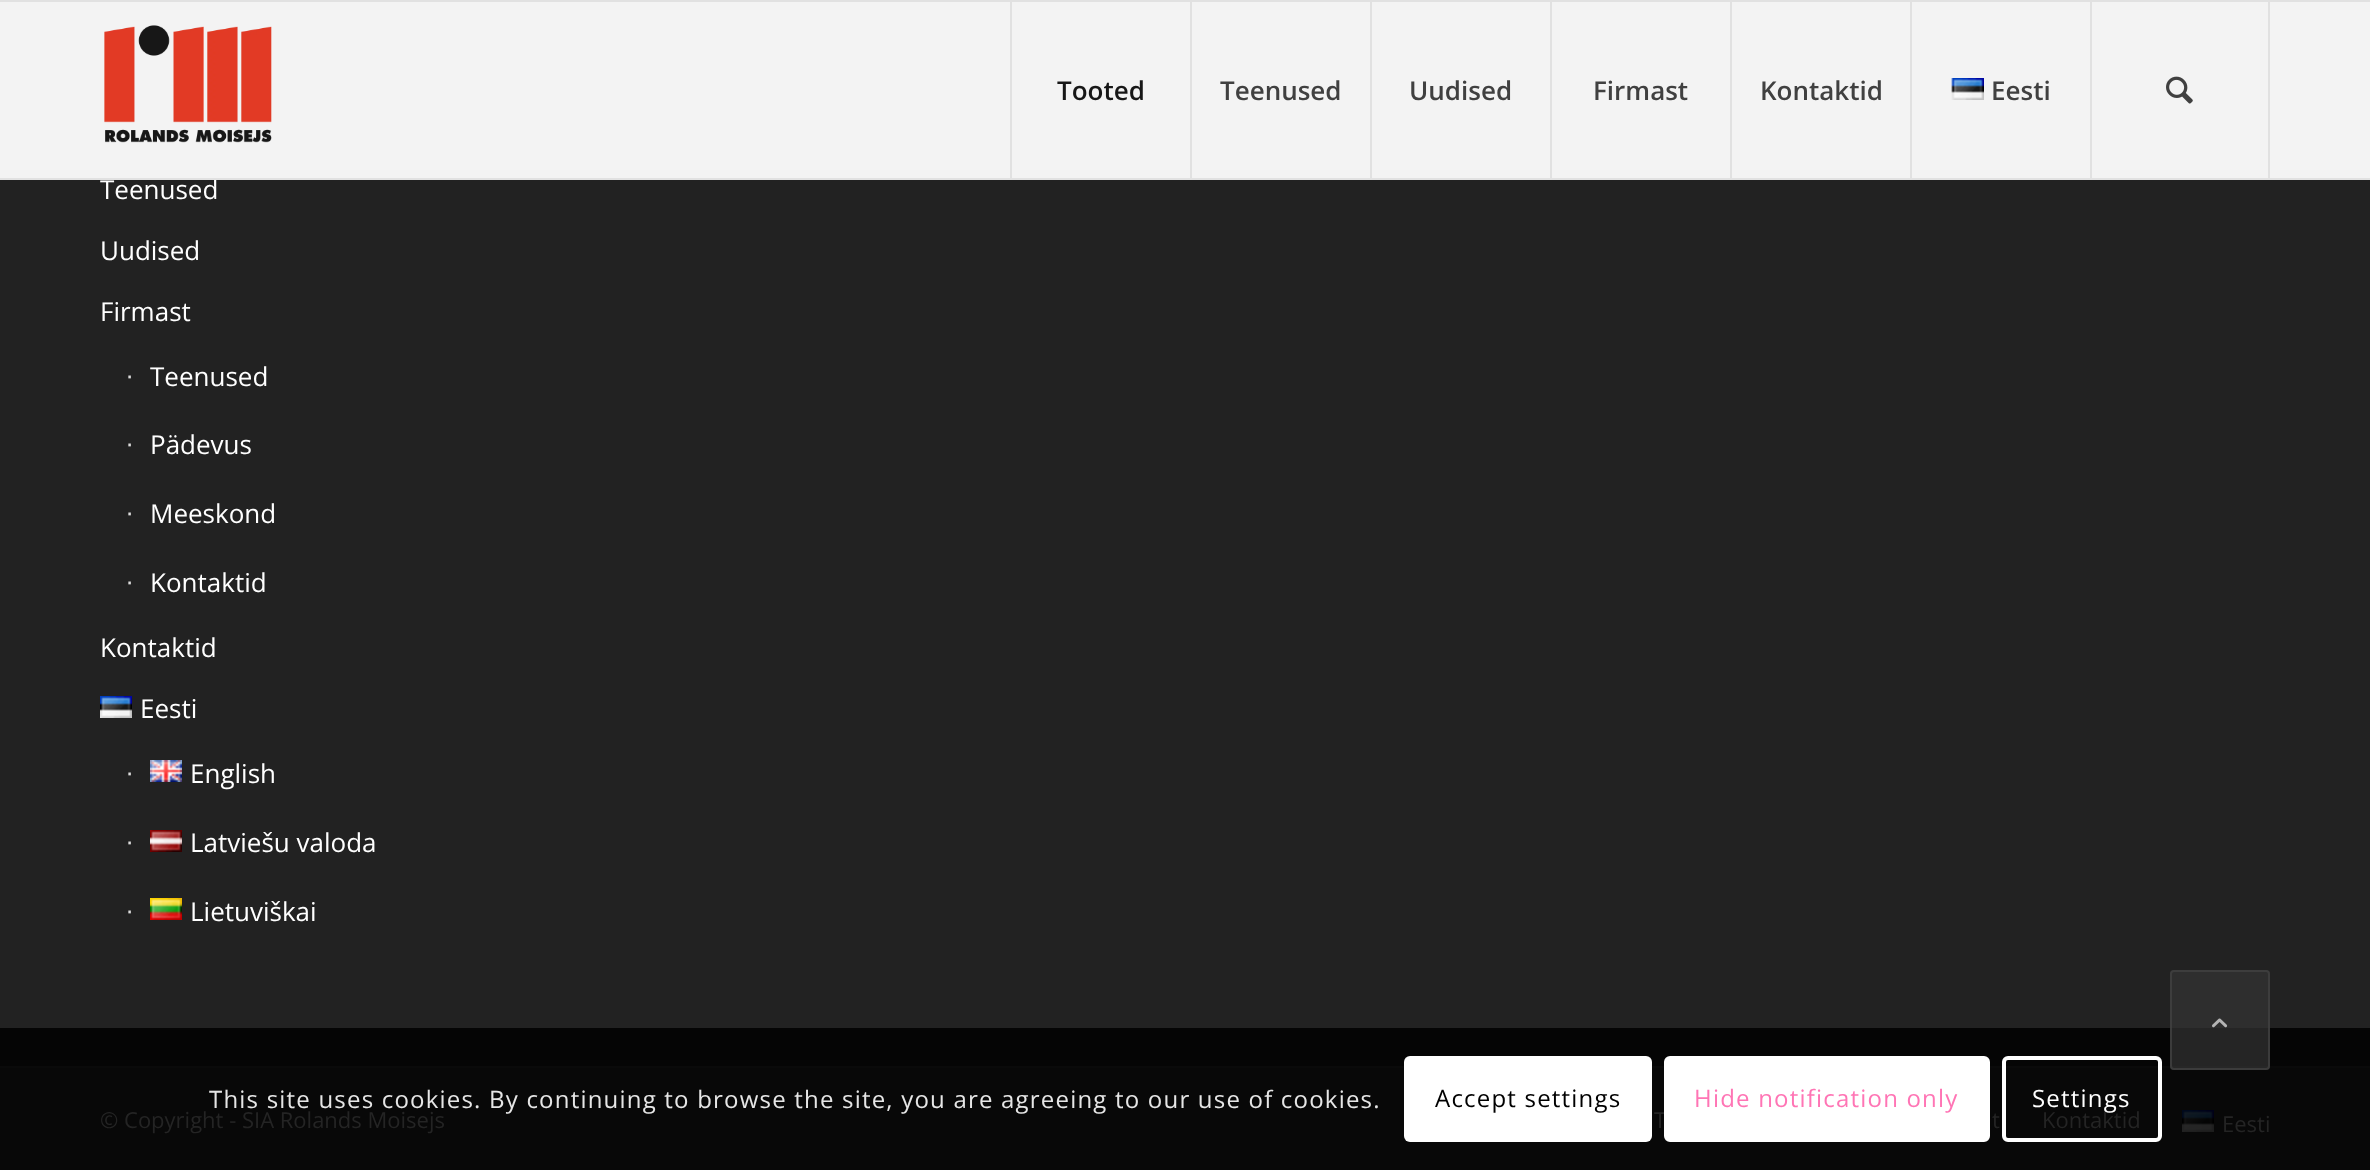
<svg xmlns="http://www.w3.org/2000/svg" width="2370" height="1170">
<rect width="100%" height="100%" fill="#222"/>
<rect y="2" width="2370" height="176" fill="#fffffff2"/>
<rect width="2370" height="2" fill="#e1e1e1"/>
<text x="100" y="199" style="font-family:Open Sans;font-size:26px;fill:#fff">Teenused</text>
<rect y="178" width="2370" height="2" fill="#e1e1e1"/>
<image x="104" y="25" width="168" height="118" href="media/1.png"/>
<rect x="1010" y="2" width="2" height="176" fill="#e1e1e1"/>
<text x="1057" y="100" style="font-family:Open Sans;font-size:26px;font-weight:600;fill:#171717">Tooted</text>
<rect x="1190" y="2" width="2" height="176" fill="#e1e1e1"/>
<text x="1220" y="100" style="font-family:Open Sans;font-size:26px;font-weight:600;fill:#404040">Teenused</text>
<rect x="1370" y="2" width="2" height="176" fill="#e1e1e1"/>
<text x="1409" y="100" style="font-family:Open Sans;font-size:26px;font-weight:600;fill:#404040">Uudised</text>
<rect x="1550" y="2" width="2" height="176" fill="#e1e1e1"/>
<text x="1593" y="100" style="font-family:Open Sans;font-size:26px;font-weight:600;fill:#404040">Firmast</text>
<rect x="1730" y="2" width="2" height="176" fill="#e1e1e1"/>
<text x="1760" y="100" style="font-family:Open Sans;font-size:26px;font-weight:600;fill:#404040">Kontaktid</text>
<rect x="1910" y="2" width="2" height="176" fill="#e1e1e1"/>
<image x="1951" y="78" width="33" height="22" href="media/2.png"/>
<text x="1991" y="100" style="font-family:Open Sans;font-size:26px;font-weight:600;fill:#404040">Eesti</text>
<rect x="2268" y="2" width="2" height="176" fill="#e1e1e1"/>
<rect x="2090" y="2" width="2" height="176" fill="#e1e1e1"/>
<image x="2166" y="76" width="27" height="28" href="media/3.png"/>
<rect y="1028" width="2370" height="38" fill="#050505"/>
<text x="100" y="260" style="font-family:Open Sans;font-size:26px;fill:#fff">Uudised</text>
<text x="100" y="321" style="font-family:Open Sans;font-size:26px;fill:#fff">Firmast</text>
<text x="126" y="384" style="font-family:Liberation Sans;font-size:26px;fill:#ddd">∙</text>
<text x="150" y="386" style="font-family:Open Sans;font-size:26px;fill:#fff">Teenused</text>
<text x="126" y="452" style="font-family:Liberation Sans;font-size:26px;fill:#ddd">∙</text>
<text x="150" y="454" style="font-family:Open Sans;font-size:26px;fill:#fff">Pädevus</text>
<text x="126" y="521" style="font-family:Liberation Sans;font-size:26px;fill:#ddd">∙</text>
<text x="150" y="523" style="font-family:Open Sans;font-size:26px;fill:#fff">Meeskond</text>
<text x="126" y="590" style="font-family:Liberation Sans;font-size:26px;fill:#ddd">∙</text>
<text x="150" y="592" style="font-family:Open Sans;font-size:26px;fill:#fff">Kontaktid</text>
<text x="100" y="657" style="font-family:Open Sans;font-size:26px;fill:#fff">Kontaktid</text>
<image x="100" y="696" width="32" height="22" href="media/4.png"/>
<text x="140" y="718" style="font-family:Open Sans;font-size:26px;fill:#fff">Eesti</text>
<text x="126" y="781" style="font-family:Liberation Sans;font-size:26px;fill:#ddd">∙</text>
<image x="150" y="760" width="32" height="22" href="media/5.png"/>
<text x="190" y="783" style="font-family:Open Sans;font-size:26px;fill:#fff">English</text>
<text x="126" y="850" style="font-family:Liberation Sans;font-size:26px;fill:#ddd">∙</text>
<image x="150" y="830" width="32" height="22" href="media/6.png"/>
<text x="190" y="852" style="font-family:Open Sans;font-size:26px;fill:#fff">Latviešu valoda</text>
<text x="126" y="919" style="font-family:Liberation Sans;font-size:26px;fill:#ddd">∙</text>
<image x="150" y="898" width="32" height="22" href="media/7.png"/>
<text x="190" y="921" style="font-family:Open Sans;font-size:26px;fill:#fff">Lietuviškai</text>
<rect y="1068" width="2370" height="102" fill="#080808"/>
<rect y="1066" width="2370" height="2" fill="#0a0a0a"/>
<text x="100" y="1128" style="font-family:Open Sans;font-size:22px;fill:#242424">© Copyright - SIA Rolands Moisejs</text>
<text x="1654" y="1128" style="font-family:Open Sans;font-size:22px;fill:#242424">T</text>
<text x="1992" y="1128" style="font-family:Open Sans;font-size:22px;fill:#242424">t</text>
<text x="2042" y="1128" style="font-family:Open Sans;font-size:22px;fill:#242424">Kontaktid</text>
<image x="2182" y="1110" width="32" height="22" href="media/8.png"/>
<text x="2222" y="1132" style="font-family:Open Sans;font-size:22px;fill:#242424">Eesti</text>
<rect x="2170" y="970" width="100" height="100" rx="4" fill="#333333b3"/>
<rect x="2171" y="971" width="98" height="98" rx="3" fill="none" stroke="#444444b3" stroke-width="2"/>
<image x="2212" y="1018" width="16" height="10" href="media/9.png"/>
<text x="209" y="1108" style="font-family:Open Sans;font-size:24px;letter-spacing:1.2px;fill:#e6e6e6">This site uses cookies. By continuing to browse the site, you are agreeing to our use of cookies.</text>
<rect x="1404" y="1056" width="248" height="86" rx="6" fill="#fff"/>
<text x="1435" y="1107" style="font-family:Open Sans;font-size:24px;letter-spacing:1.2px;fill:#000">Accept settings</text>
<rect x="1666" y="1058" width="322" height="82" rx="4" fill="#fff" stroke="#fff" stroke-width="4"/>
<text x="1694" y="1107" style="font-family:Open Sans;font-size:24px;letter-spacing:1.2px;fill:#ff75b5">Hide notification only</text>
<rect x="2004" y="1058" width="156" height="82" rx="4" fill="none" stroke="#fff" stroke-width="4"/>
<text x="2032" y="1107" style="font-family:Open Sans;font-size:24px;letter-spacing:1.2px;fill:#fff">Settings</text>
</svg>
